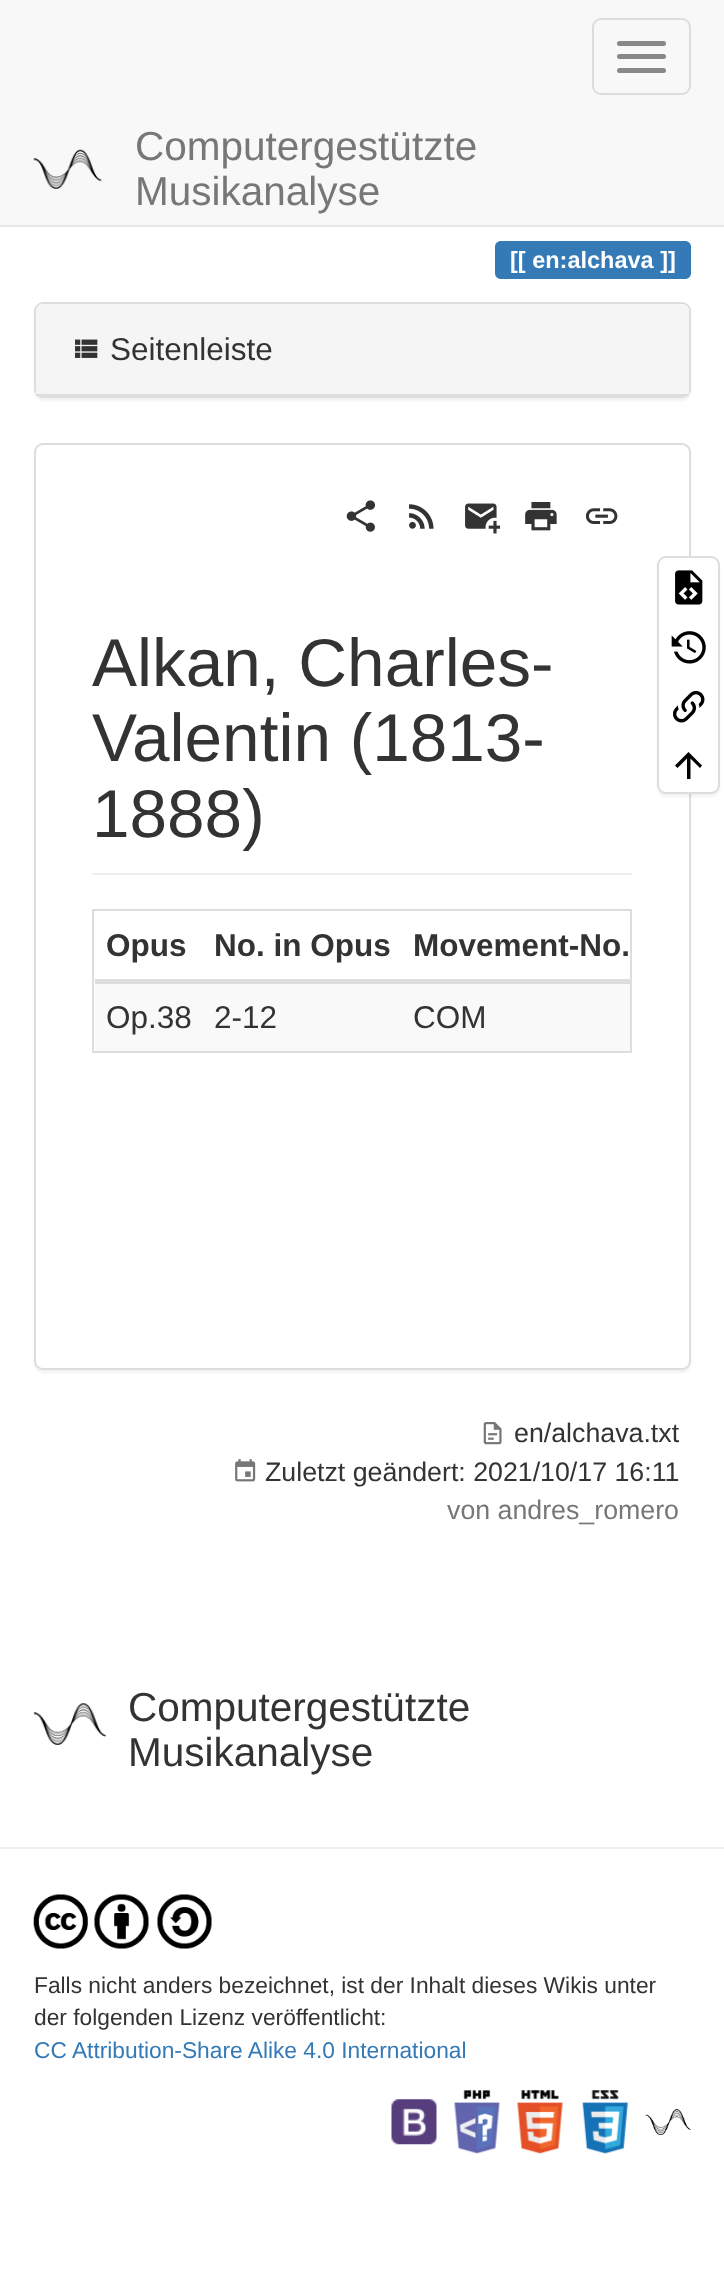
<svg xmlns="http://www.w3.org/2000/svg" width="724" height="2270">
<rect width="100%" height="100%" fill="#fff"/>
<rect width="724" height="225" fill="#f8f8f8"/>
<rect y="225" width="724" height="2" fill="#e7e7e7"/>
<rect x="593" y="19" width="97" height="75" rx="8" fill="none" stroke="#ddd" stroke-width="2"/>
<rect x="617" y="41" width="49" height="5" rx="2.5" fill="#888"/>
<rect x="617" y="54" width="49" height="5" rx="2.5" fill="#888"/>
<rect x="617" y="68" width="49" height="5" rx="2.5" fill="#888"/>
<image x="33" y="149" width="69" height="40" href="media/1.png"/>
<text x="135" y="160" style="font-family:Liberation Sans;font-size:40.5px;fill:#777">Computergestützte</text>
<text x="135" y="205" style="font-family:Liberation Sans;font-size:40.5px;fill:#777">Musikanalyse</text>
<path d="M501 241h32v38h-32c-3.5 0-6-2.5-6-6v-26c0-3.5 2.5-6 6-6z" fill="#337ab7"/>
<rect x="533" y="241" width="122" height="38" fill="#337ab7"/>
<path d="M655 241h30c3.5 0 6 2.5 6 6v26c0 3.5-2.5 6-6 6h-30z" fill="#337ab7"/>
<text x="510" y="268" style="font-family:Liberation Sans;font-size:23.5px;font-weight:bold;fill:#fff">[[ en:alchava ]]</text>
<rect x="34" y="304" width="657" height="97" rx="9" fill="#0000000d" filter="blur(1px)"/>
<rect x="35" y="303" width="655" height="94" rx="8" fill="none" stroke="#ddd" stroke-width="2"/>
<path d="M43 304h639c4 0 7 3 7 7v85h-653v-85c0-4 3-7 7-7z" fill="#f5f5f5"/>
<rect x="36" y="394" width="653" height="2" fill="#ddd"/>
<image x="75" y="339" width="23" height="19" href="media/2.png"/>
<text x="110" y="360" style="font-family:Liberation Sans;font-size:31.5px;fill:#333">Seitenleiste</text>
<rect x="34" y="446" width="657" height="927" rx="9" fill="#0000000d" filter="blur(1px)"/>
<rect x="35" y="444" width="655" height="925" rx="8" fill="#fff" stroke="#ddd" stroke-width="2"/>
<image x="346" y="500" width="30" height="32" href="media/3.png"/>
<image x="409" y="504" width="25" height="25" href="media/4.png"/>
<image x="465" y="503" width="35" height="31" href="media/5.png"/>
<image x="525" y="502" width="32" height="29" href="media/6.png"/>
<image x="585" y="508" width="33" height="16" href="media/7.png"/>
<rect x="92" y="873" width="540" height="2" fill="#eee"/>
<text x="92" y="686" style="font-family:Liberation Sans;font-size:67.5px;fill:#333">Alkan, Charles-</text>
<text x="92" y="761" style="font-family:Liberation Sans;font-size:67.5px;fill:#333">Valentin (1813-</text>
<text x="92" y="837" style="font-family:Liberation Sans;font-size:67.5px;fill:#333">1888)</text>
<rect x="93" y="910" width="538" height="142" fill="none" stroke="#ddd" stroke-width="2"/>
<text x="106" y="956" style="font-family:Liberation Sans;font-size:31.5px;font-weight:bold;fill:#333">Opus</text>
<text x="214" y="956" style="font-family:Liberation Sans;font-size:31.5px;font-weight:bold;fill:#333">No. in Opus</text>
<rect x="95" y="979" width="535" height="5" fill="#ddd"/>
<text x="413" y="956" style="font-family:Liberation Sans;font-size:31.5px;font-weight:bold;fill:#333">Movement-No.</text>
<rect x="95" y="984" width="535" height="67" fill="#f9f9f9"/>
<text x="106" y="1028" style="font-family:Liberation Sans;font-size:31.5px;fill:#333">Op.38</text>
<text x="214" y="1028" style="font-family:Liberation Sans;font-size:31.5px;fill:#333">2-12</text>
<text x="413" y="1028" style="font-family:Liberation Sans;font-size:31.5px;fill:#333">COM</text>
<rect x="657" y="558" width="63" height="239" rx="9" fill="#0000000d" filter="blur(1px)"/>
<rect x="658" y="557" width="61" height="236" rx="8" fill="#fff" stroke="#ddd" stroke-width="2"/>
<image x="675" y="570" width="28" height="35" href="media/8.png"/>
<image x="671" y="631" width="35" height="33" href="media/9.png"/>
<image x="673" y="691" width="32" height="32" href="media/10.png"/>
<path d="M690.5 779h-3.5v-20.5l-9.5 9.5l-2.5-2.5l13.5-13.5l13.5 13.5l-2 2.5l-9.5-9.5z" fill="#000"/>
<image x="483" y="1422" width="19" height="23" href="media/11.png"/>
<text x="514" y="1442" style="font-family:Liberation Sans;font-size:26.75px;fill:#333">en/alchava.txt</text>
<image x="235" y="1459" width="21" height="23" href="media/12.png"/>
<text x="265" y="1481" style="font-family:Liberation Sans;font-size:26.75px;fill:#333">Zuletzt geändert: 2021/10/17 16:11</text>
<text x="447" y="1519" style="font-family:Liberation Sans;font-size:26.75px;fill:#777">von andres_romero</text>
<image x="33" y="1703" width="73" height="42" href="media/13.png"/>
<text x="128" y="1721" style="font-family:Liberation Sans;font-size:40.5px;fill:#333">Computergestützte</text>
<text x="128" y="1766" style="font-family:Liberation Sans;font-size:40.5px;fill:#333">Musikanalyse</text>
<rect y="1847" width="724" height="2" fill="#eee"/>
<image x="33" y="1894" width="55" height="55" href="media/14.png"/>
<image x="94" y="1894" width="55" height="55" href="media/15.png"/>
<image x="157" y="1894" width="55" height="55" href="media/16.png"/>
<text x="34" y="1993" style="font-family:Liberation Sans;font-size:22.75px;fill:#333">Falls nicht anders bezeichnet, ist der Inhalt dieses Wikis unter</text>
<text x="34" y="2025" style="font-family:Liberation Sans;font-size:22.75px;fill:#333">der folgenden Lizenz veröffentlicht:</text>
<text x="34" y="2058" style="font-family:Liberation Sans;font-size:22.75px;fill:#337ab7">CC Attribution-Share Alike 4.0 International</text>
<image x="391" y="2099" width="46" height="46" href="media/17.png"/>
<image x="454" y="2090" width="46" height="64" href="media/18.png"/>
<image x="517" y="2090" width="46" height="64" href="media/19.png"/>
<image x="582" y="2090" width="46" height="64" href="media/20.png"/>
<image x="645" y="2109" width="46" height="26" href="media/21.png"/>
</svg>
